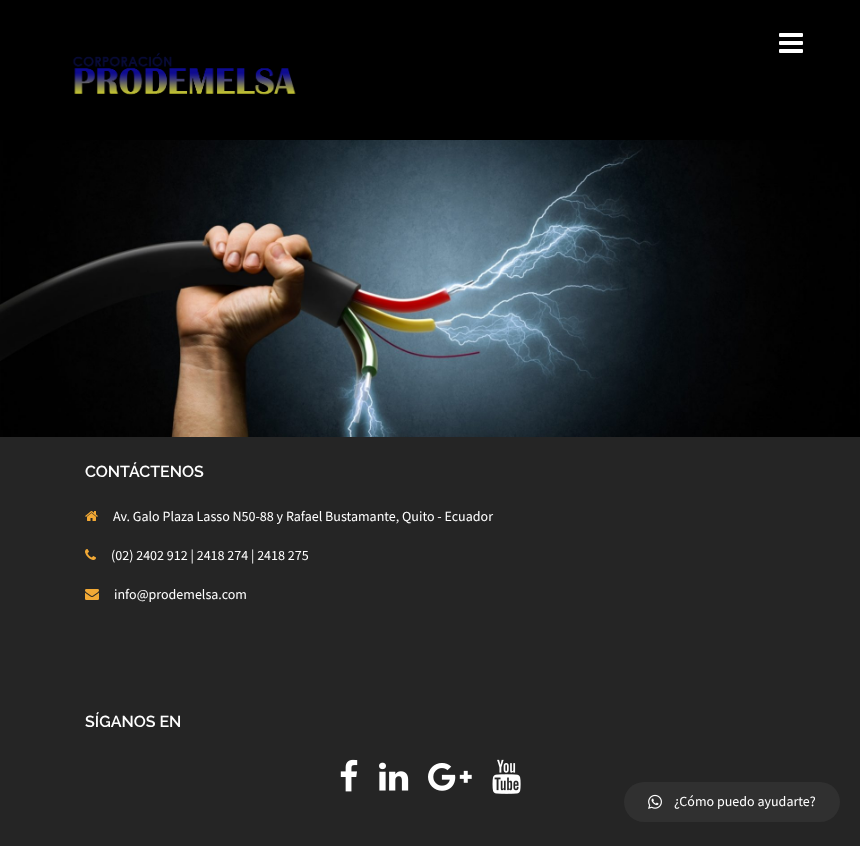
<svg xmlns="http://www.w3.org/2000/svg" width="860" height="846">
<rect width="100%" height="100%" fill="#000"/>
<image x="779" y="33" width="24" height="20" href="media/1.png"/>
<image x="72" y="52" width="224" height="43" href="media/2.png"/>
<image x="0" y="140" width="860" height="297" href="media/3.png"/>
<rect y="437" width="860" height="409" fill="#252525"/>
<text x="85" y="477" style="font-family:Raleway;font-size:16px;font-weight:600;fill:#fff">CONTÁCTENOS</text>
<image x="85" y="511" width="13" height="10" href="media/4.png"/>
<text x="113" y="521" style="font-family:Source Sans Pro;font-size:14px;fill:#fff">Av. Galo Plaza Lasso N50-88 y Rafael Bustamante, Quito - Ecuador</text>
<image x="85" y="549" width="11" height="11" href="media/5.png"/>
<text x="111" y="560" style="font-family:Source Sans Pro;font-size:14px;fill:#fff">(02) 2402 912 | 2418 274 | 2418 275</text>
<image x="85" y="589" width="14" height="11" href="media/6.png"/>
<text x="114" y="599" style="font-family:Source Sans Pro;font-size:14px;fill:#fff">info@prodemelsa.com</text>
<text x="85" y="727" style="font-family:Raleway;font-size:16px;font-weight:600;fill:#fff">SÍGANOS EN</text>
<image x="340" y="759" width="18" height="33" href="media/7.png"/>
<image x="379" y="762" width="30" height="29" href="media/8.png"/>
<image x="428" y="763" width="44" height="28" href="media/9.png"/>
<image x="492" y="759" width="29" height="35" href="media/10.png"/>
<rect x="624" y="782" width="216" height="40" rx="20" fill="#303030"/>
<image x="648" y="794" width="14" height="15" href="media/11.png"/>
<text x="674" y="806" style="font-family:Source Sans Pro;font-size:14px;fill:#fff">¿Cómo puedo ayudarte?</text>
</svg>
